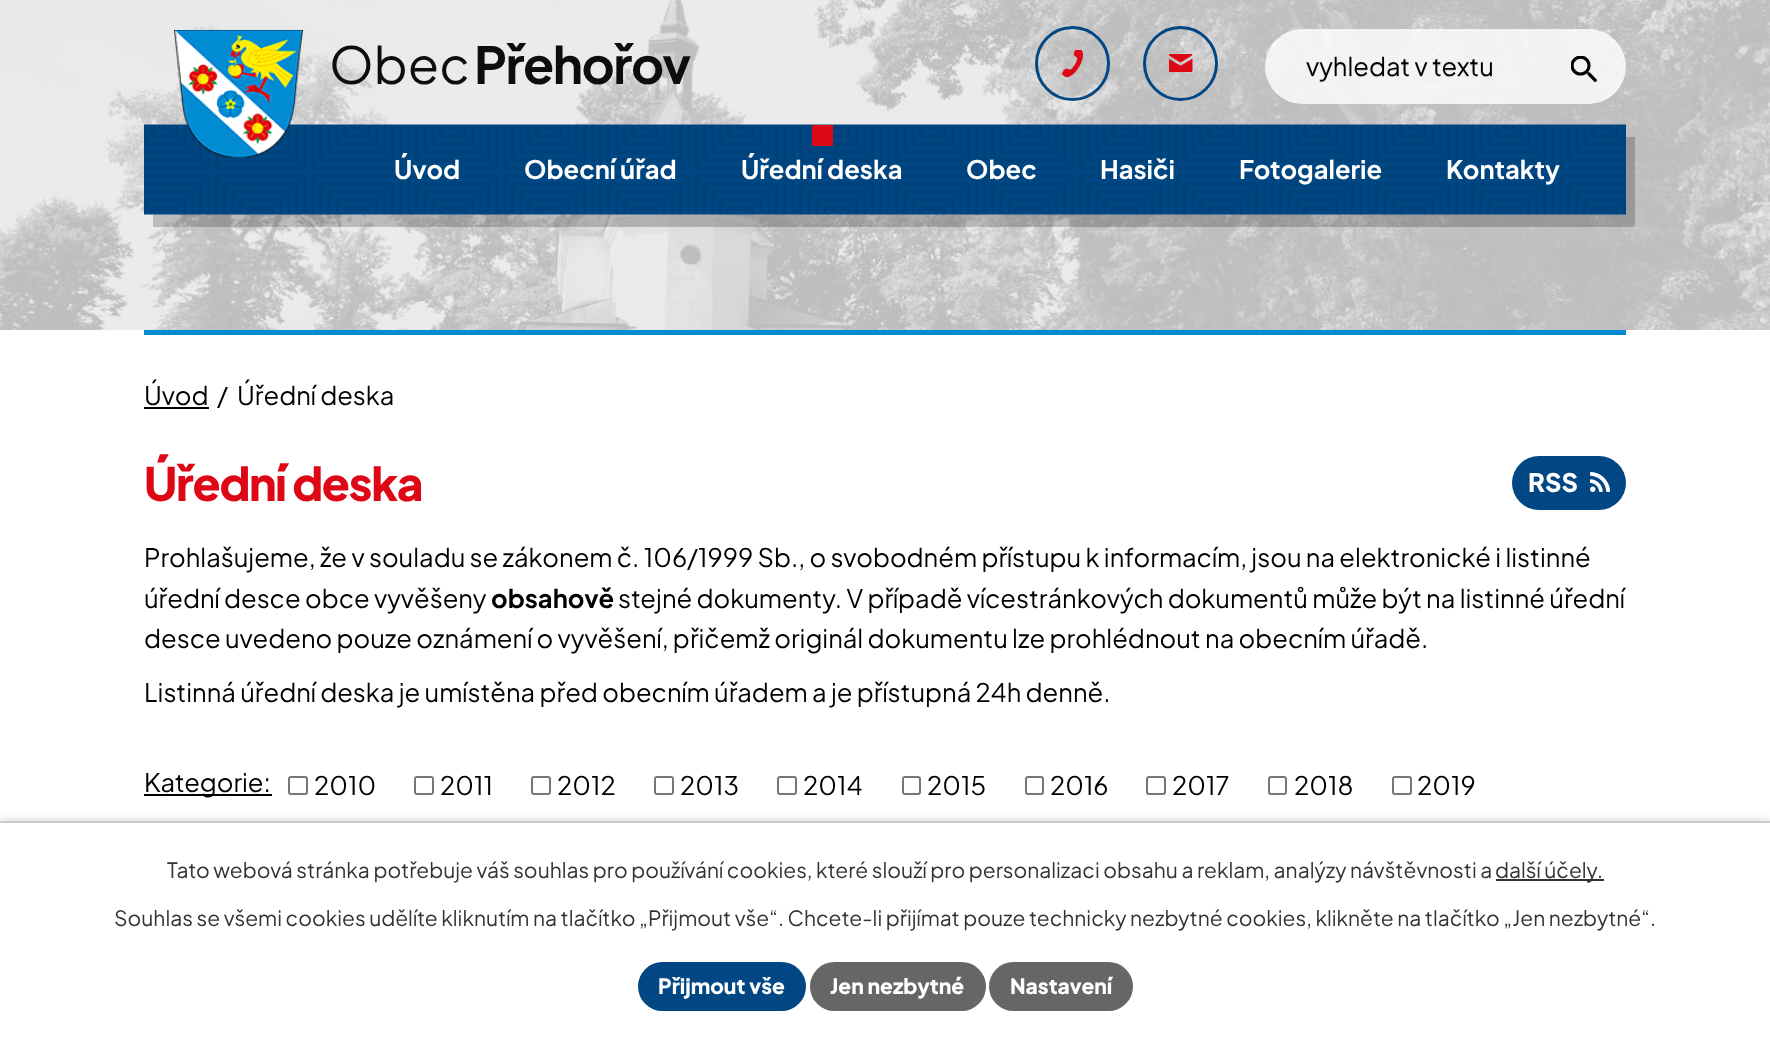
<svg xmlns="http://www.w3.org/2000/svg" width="1770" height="1037">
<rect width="100%" height="100%" fill="#fff"/>
<image x="0" y="0" width="1770" height="330" href="media/1.png"/>
<rect x="144" y="330" width="1482" height="5" fill="#008bd2"/>
<path d="M153 214v13h1482v-90h-9v77z" fill="#00000033"/>
<image x="144" y="124" width="1482" height="91" href="media/6.png"/>
<image x="174" y="30" width="129" height="128" href="media/2.png"/>
<text x="329" y="84" style="font-family:Plus Jakarta Sans;font-size:51px;fill:#0d0d0d">Obec</text>
<text x="474" y="84" style="font-family:Plus Jakarta Sans;font-size:51px;font-weight:bold;letter-spacing:-1.5px;fill:#0d0d0d">Přehořov</text>
<circle cx="1072.5" cy="63.5" r="36" fill="none" stroke="#004783" stroke-width="3"/>
<image x="1062" y="50" width="21" height="28" href="media/3.png"/>
<circle cx="1180.5" cy="63.5" r="36" fill="none" stroke="#004783" stroke-width="3"/>
<image x="1169" y="54" width="24" height="18" href="media/4.png"/>
<rect x="1265" y="29" width="361" height="75" rx="37.5" fill="#ffffffcc"/>
<text x="1306" y="76" style="font-family:Plus Jakarta Sans;font-size:25.5px;fill:#000">vyhledat v textu</text>
<image x="1571" y="56" width="27" height="27" href="media/5.png"/>
<text x="394" y="179" style="font-family:Plus Jakarta Sans;font-size:25.5px;font-weight:bold;fill:#fff">Úvod</text>
<text x="524" y="179" style="font-family:Plus Jakarta Sans;font-size:25.5px;font-weight:bold;fill:#fff">Obecní úřad</text>
<rect x="812" y="125" width="21" height="21" fill="#de0716"/>
<text x="741" y="179" style="font-family:Plus Jakarta Sans;font-size:25.5px;font-weight:bold;fill:#fff">Úřední deska</text>
<text x="966" y="179" style="font-family:Plus Jakarta Sans;font-size:25.5px;font-weight:bold;fill:#fff">Obec</text>
<text x="1100" y="179" style="font-family:Plus Jakarta Sans;font-size:25.5px;font-weight:bold;fill:#fff">Hasiči</text>
<text x="1239" y="179" style="font-family:Plus Jakarta Sans;font-size:25.5px;font-weight:bold;fill:#fff">Fotogalerie</text>
<text x="1446" y="179" style="font-family:Plus Jakarta Sans;font-size:25.5px;font-weight:bold;fill:#fff">Kontakty</text>
<text x="144" y="405" style="font-family:Plus Jakarta Sans;font-size:25.5px;fill:#000">Úvod</text>
<rect x="144" y="407" width="65" height="2" fill="#000"/>
<text x="217" y="405" style="font-family:Plus Jakarta Sans;font-size:25.5px;fill:#000">/</text>
<text x="237" y="405" style="font-family:Plus Jakarta Sans;font-size:25.5px;fill:#000">Úřední deska</text>
<text x="144" y="501" style="font-family:Plus Jakarta Sans;font-size:46px;font-weight:800;letter-spacing:-1.25px;fill:#de0716">Úřední deska</text>
<rect x="1512" y="456" width="114" height="54" rx="27" fill="#004783"/>
<text x="1528" y="492" style="font-family:Plus Jakarta Sans;font-size:25.5px;font-weight:800;fill:#fff">RSS</text>
<image x="1590" y="472" width="20" height="20" href="media/7.png"/>
<text x="144" y="567" style="font-family:Plus Jakarta Sans;font-size:25.5px;fill:#000">Prohlašujeme, že v souladu se zákonem č. 106/1999 Sb., o svobodném přístupu k informacím, jsou na elektronické i listinné</text>
<text x="144" y="608" style="font-family:Plus Jakarta Sans;font-size:25.5px;fill:#000">úřední desce obce vyvěšeny</text>
<text x="491" y="608" style="font-family:Plus Jakarta Sans;font-size:25.5px;font-weight:bold;fill:#000">obsahově</text>
<text x="618" y="608" style="font-family:Plus Jakarta Sans;font-size:25.5px;fill:#000">stejné dokumenty. V případě vícestránkových dokumentů může být na listinné úřední</text>
<text x="144" y="648" style="font-family:Plus Jakarta Sans;font-size:25.5px;fill:#000">desce uvedeno pouze oznámení o vyvěšení, přičemž originál dokumentu lze prohlédnout na obecním úřadě.</text>
<text x="144" y="702" style="font-family:Plus Jakarta Sans;font-size:25.5px;fill:#000">Listinná úřední deska je umístěna před obecním úřadem a je přístupná 24h denně.</text>
<rect x="144" y="794" width="128" height="2" fill="#000"/>
<text x="144" y="792" style="font-family:Plus Jakarta Sans;font-size:25.5px;fill:#000">Kategorie:</text>
<rect x="289" y="777" width="18" height="17" rx="2" fill="none" stroke="#767676" stroke-width="2"/>
<text x="314" y="795" style="font-family:Plus Jakarta Sans;font-size:25.5px;fill:#000">2010</text>
<rect x="415" y="777" width="18" height="17" rx="2" fill="none" stroke="#767676" stroke-width="2"/>
<text x="440" y="795" style="font-family:Plus Jakarta Sans;font-size:25.5px;fill:#000">2011</text>
<rect x="532" y="777" width="18" height="17" rx="2" fill="none" stroke="#767676" stroke-width="2"/>
<text x="557" y="795" style="font-family:Plus Jakarta Sans;font-size:25.5px;fill:#000">2012</text>
<rect x="655" y="777" width="18" height="17" rx="2" fill="none" stroke="#767676" stroke-width="2"/>
<text x="680" y="795" style="font-family:Plus Jakarta Sans;font-size:25.5px;fill:#000">2013</text>
<rect x="778" y="777" width="18" height="17" rx="2" fill="none" stroke="#767676" stroke-width="2"/>
<text x="803" y="795" style="font-family:Plus Jakarta Sans;font-size:25.5px;fill:#000">2014</text>
<rect x="903" y="777" width="17" height="17" rx="2" fill="none" stroke="#767676" stroke-width="2"/>
<text x="927" y="795" style="font-family:Plus Jakarta Sans;font-size:25.5px;fill:#000">2015</text>
<rect x="1026" y="777" width="17" height="17" rx="2" fill="none" stroke="#767676" stroke-width="2"/>
<text x="1050" y="795" style="font-family:Plus Jakarta Sans;font-size:25.5px;fill:#000">2016</text>
<rect x="1147" y="777" width="18" height="17" rx="2" fill="none" stroke="#767676" stroke-width="2"/>
<text x="1172" y="795" style="font-family:Plus Jakarta Sans;font-size:25.5px;fill:#000">2017</text>
<rect x="1269" y="777" width="17" height="17" rx="2" fill="none" stroke="#767676" stroke-width="2"/>
<text x="1294" y="795" style="font-family:Plus Jakarta Sans;font-size:25.5px;fill:#000">2018</text>
<rect x="1393" y="777" width="18" height="17" rx="2" fill="none" stroke="#767676" stroke-width="2"/>
<text x="1417" y="795" style="font-family:Plus Jakarta Sans;font-size:25.5px;fill:#000">2019</text>
<rect y="821" width="1770" height="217" fill="#00000033" filter="blur(4px)"/>
<rect y="823" width="1770" height="214" fill="#fff"/>
<rect y="821" width="1770" height="2" fill="#ccc"/>
<text x="167" y="878" style="font-family:Plus Jakarta Sans;font-size:21px;fill:#333">Tato webová stránka potřebuje váš souhlas pro používání cookies, které slouží pro personalizaci obsahu a reklam, analýzy návštěvnosti a</text>
<rect x="1496" y="879" width="108" height="2" fill="#333"/>
<text x="1495" y="878" style="font-family:Plus Jakarta Sans;font-size:21px;fill:#333">další účely.</text>
<text x="114" y="926" style="font-family:Plus Jakarta Sans;font-size:21px;fill:#333">Souhlas se všemi cookies udělíte kliknutím na tlačítko „Přijmout vše“. Chcete-li přijímat pouze technicky nezbytné cookies, klikněte na tlačítko „Jen nezbytné“.</text>
<rect x="638" y="962" width="168" height="49" rx="24.5" fill="#004783"/>
<text x="658" y="994" style="font-family:Plus Jakarta Sans;font-size:21px;font-weight:800;fill:#fff">Přijmout vše</text>
<rect x="810" y="962" width="176" height="49" rx="24.5" fill="#666"/>
<text x="830" y="994" style="font-family:Plus Jakarta Sans;font-size:21px;font-weight:800;fill:#fff">Jen nezbytné</text>
<rect x="989" y="962" width="144" height="49" rx="24.5" fill="#666"/>
<text x="1010" y="994" style="font-family:Plus Jakarta Sans;font-size:21px;font-weight:800;fill:#fff">Nastavení</text>
</svg>
